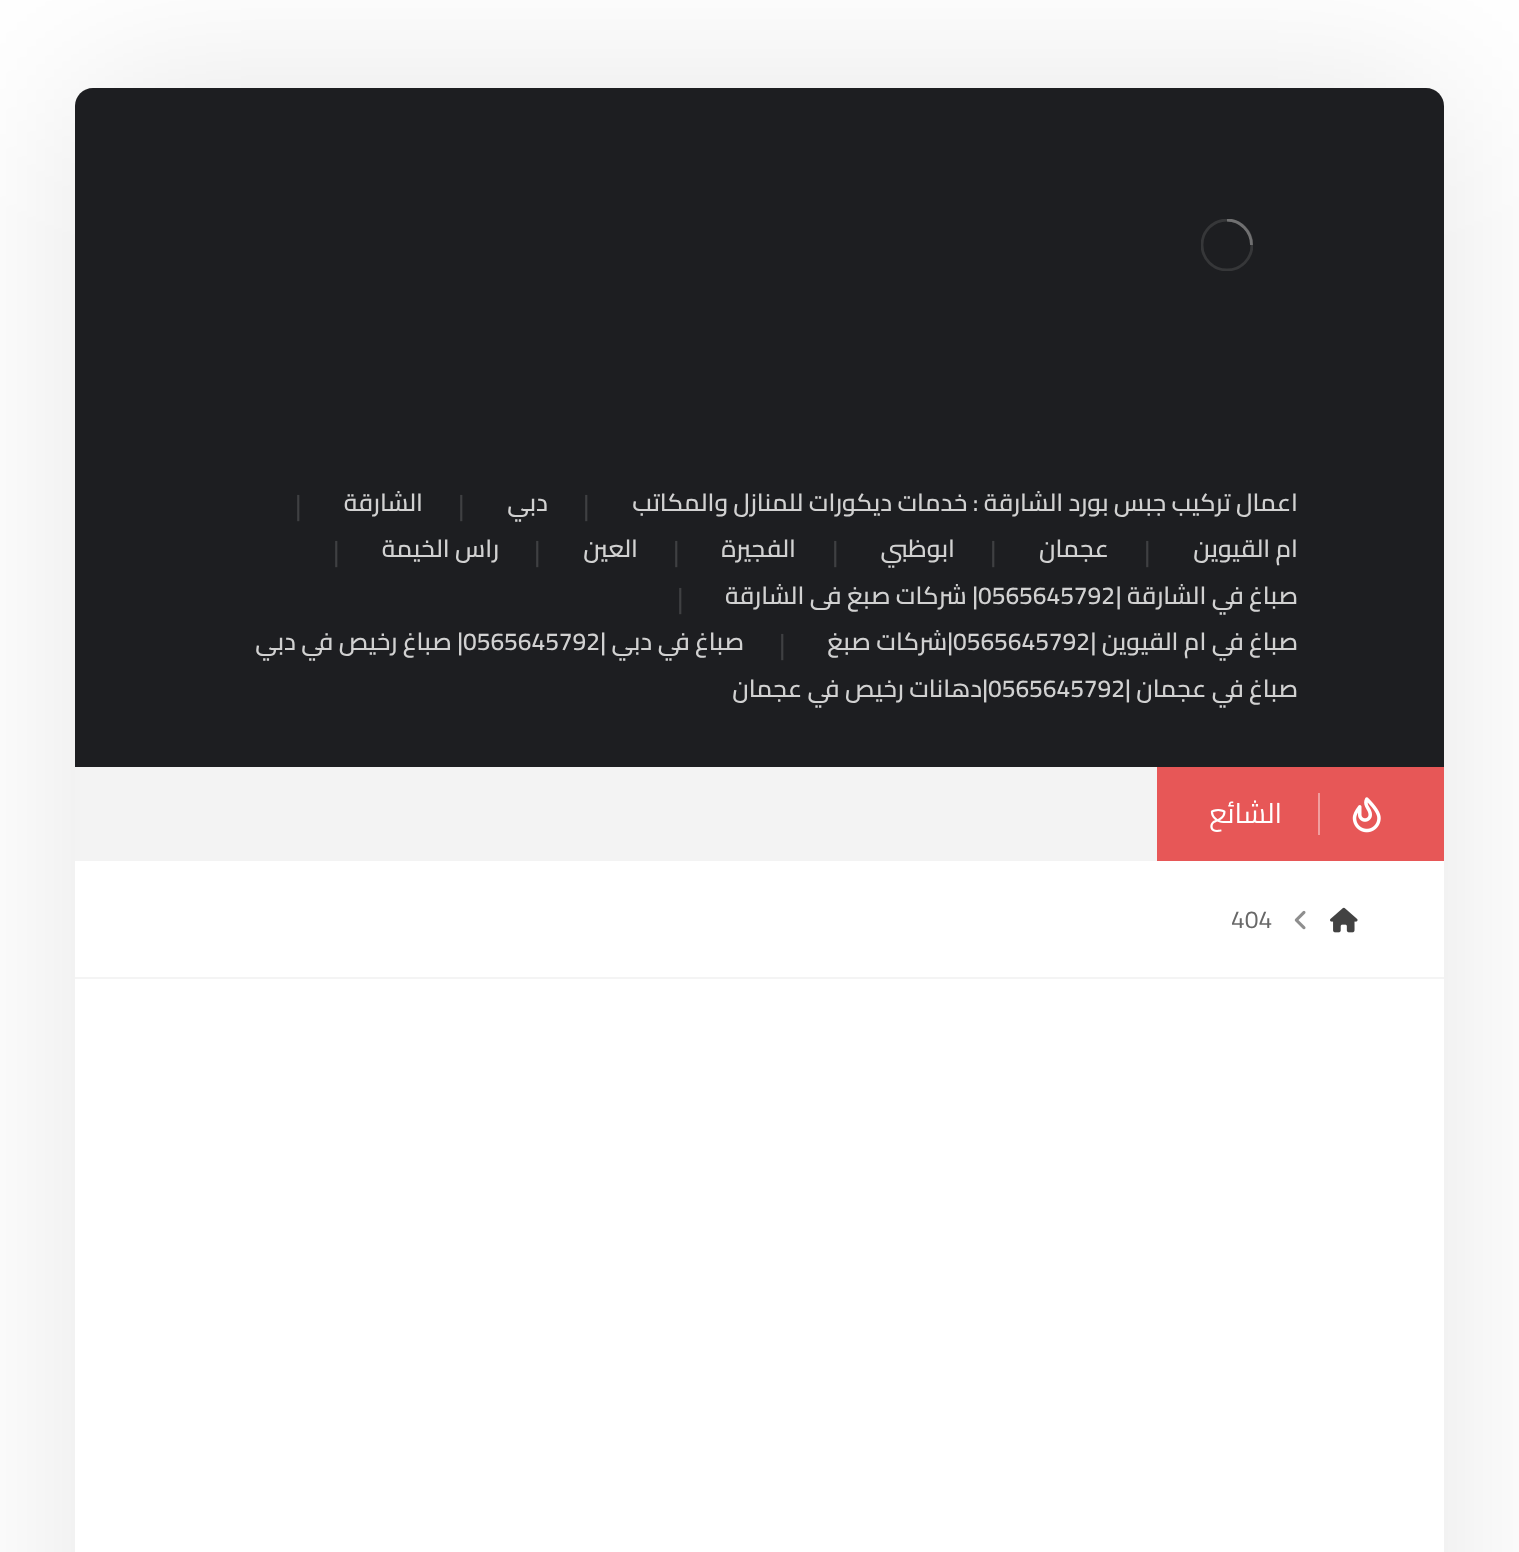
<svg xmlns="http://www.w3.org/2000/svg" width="1519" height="1552">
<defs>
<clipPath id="clip1"><rect x="1201" y="219" width="52" height="52"/></clipPath>
</defs>
<rect width="100%" height="100%" fill="#fff"/>
<rect x="75" y="88" width="1369" height="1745" rx="18" fill="#0000001a" filter="blur(87.5px)"/>
<rect x="75" y="88" width="1369" height="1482" rx="18" fill="#fff"/>
<path d="M93 88h1333c10 0 18 8 18 18v661h-1369v-661c0-10 8-18 18-18z" fill="#1d1e21"/>
<g clip-path="url(#clip1)">
<circle cx="1227" cy="245" r="25" fill="none" stroke="#363739" stroke-width="2.8"/>
<path d="M1251.5 245c0-13.5-11-25-24.5-25" fill="none" stroke="#707071" stroke-width="2.8"/>
</g>
<text x="1298" y="511" style="font-family:Cairo;font-size:24.5px;font-weight:600;direction:rtl;fill:#d1d1d1">اعمال تركيب جبس بورد الشارقة : خدمات ديكورات للمنازل والمكاتب</text>
<text x="583" y="515" style="font-family:Cairo;font-size:28px;fill:#3f4042">|</text>
<text x="548" y="511" style="font-family:Cairo;font-size:24.5px;font-weight:600;direction:rtl;fill:#d1d1d1">دبي</text>
<text x="458" y="515" style="font-family:Cairo;font-size:28px;fill:#3f4042">|</text>
<text x="423" y="511" style="font-family:Cairo;font-size:24.5px;font-weight:600;direction:rtl;fill:#d1d1d1">الشارقة</text>
<text x="295" y="515" style="font-family:Cairo;font-size:28px;fill:#3f4042">|</text>
<text x="1298" y="557" style="font-family:Cairo;font-size:24.5px;font-weight:600;direction:rtl;fill:#d1d1d1">ام القيوين</text>
<text x="1144" y="561" style="font-family:Cairo;font-size:28px;fill:#3f4042">|</text>
<text x="1109" y="557" style="font-family:Cairo;font-size:24.5px;font-weight:600;direction:rtl;fill:#d1d1d1">عجمان</text>
<text x="990" y="561" style="font-family:Cairo;font-size:28px;fill:#3f4042">|</text>
<text x="955" y="557" style="font-family:Cairo;font-size:24.5px;font-weight:600;direction:rtl;fill:#d1d1d1">ابوظبي</text>
<text x="832" y="561" style="font-family:Cairo;font-size:28px;fill:#3f4042">|</text>
<text x="796" y="557" style="font-family:Cairo;font-size:24.5px;font-weight:600;direction:rtl;fill:#d1d1d1">الفجيرة</text>
<text x="673" y="561" style="font-family:Cairo;font-size:28px;fill:#3f4042">|</text>
<text x="638" y="557" style="font-family:Cairo;font-size:24.5px;font-weight:600;direction:rtl;fill:#d1d1d1">العين</text>
<text x="534" y="561" style="font-family:Cairo;font-size:28px;fill:#3f4042">|</text>
<text x="499" y="557" style="font-family:Cairo;font-size:24.5px;font-weight:600;direction:rtl;fill:#d1d1d1">راس الخيمة</text>
<text x="333" y="561" style="font-family:Cairo;font-size:28px;fill:#3f4042">|</text>
<text x="1298" y="604" style="font-family:Cairo;font-size:24.5px;font-weight:600;direction:rtl;fill:#d1d1d1">صباغ في الشارقة |</text>
<text x="978" y="604" style="font-family:Cairo;font-size:24.5px;font-weight:600;fill:#d1d1d1">0565645792</text>
<text x="978" y="604" style="font-family:Cairo;font-size:24.5px;font-weight:600;direction:rtl;fill:#d1d1d1">| شركات صبغ فى الشارقة</text>
<text x="677" y="608" style="font-family:Cairo;font-size:28px;fill:#3f4042">|</text>
<text x="1298" y="650" style="font-family:Cairo;font-size:24.5px;font-weight:600;direction:rtl;fill:#d1d1d1">صباغ في ام القيوين |</text>
<text x="953" y="650" style="font-family:Cairo;font-size:24.5px;font-weight:600;fill:#d1d1d1">0565645792</text>
<text x="953" y="650" style="font-family:Cairo;font-size:24.5px;font-weight:600;direction:rtl;fill:#d1d1d1">|شركات صبغ</text>
<text x="779" y="654" style="font-family:Cairo;font-size:28px;fill:#3f4042">|</text>
<text x="744" y="650" style="font-family:Cairo;font-size:24.5px;font-weight:600;direction:rtl;fill:#d1d1d1">صباغ في دبي |</text>
<text x="463" y="650" style="font-family:Cairo;font-size:24.5px;font-weight:600;fill:#d1d1d1">0565645792</text>
<text x="463" y="650" style="font-family:Cairo;font-size:24.5px;font-weight:600;direction:rtl;fill:#d1d1d1">| صباغ رخيص في دبي</text>
<text x="1298" y="697" style="font-family:Cairo;font-size:24.5px;font-weight:600;direction:rtl;fill:#d1d1d1">صباغ في عجمان |</text>
<text x="988" y="697" style="font-family:Cairo;font-size:24.5px;font-weight:600;fill:#d1d1d1">0565645792</text>
<text x="988" y="697" style="font-family:Cairo;font-size:24.5px;font-weight:600;direction:rtl;fill:#d1d1d1">|دهانات رخيص في عجمان</text>
<rect x="75" y="767" width="1082" height="94" fill="#f3f3f3"/>
<rect x="1157" y="767" width="287" height="94" fill="#e75757"/>
<rect x="1318" y="793" width="2" height="42" fill="#f19e9e"/>
<image x="1352" y="797" width="29" height="36" href="media/1.png"/>
<text x="1282" y="823" style="font-family:Cairo;font-size:28px;direction:rtl;fill:#fff">الشائع</text>
<rect x="75" y="977" width="1369" height="2" fill="#f4f4f4"/>
<image x="1330" y="907" width="28" height="26" href="media/2.png"/>
<image x="1294" y="910" width="12" height="20" href="media/3.png"/>
<text x="1231" y="928" style="font-family:Cairo;font-size:24.5px;fill:#686868">404</text>
</svg>
